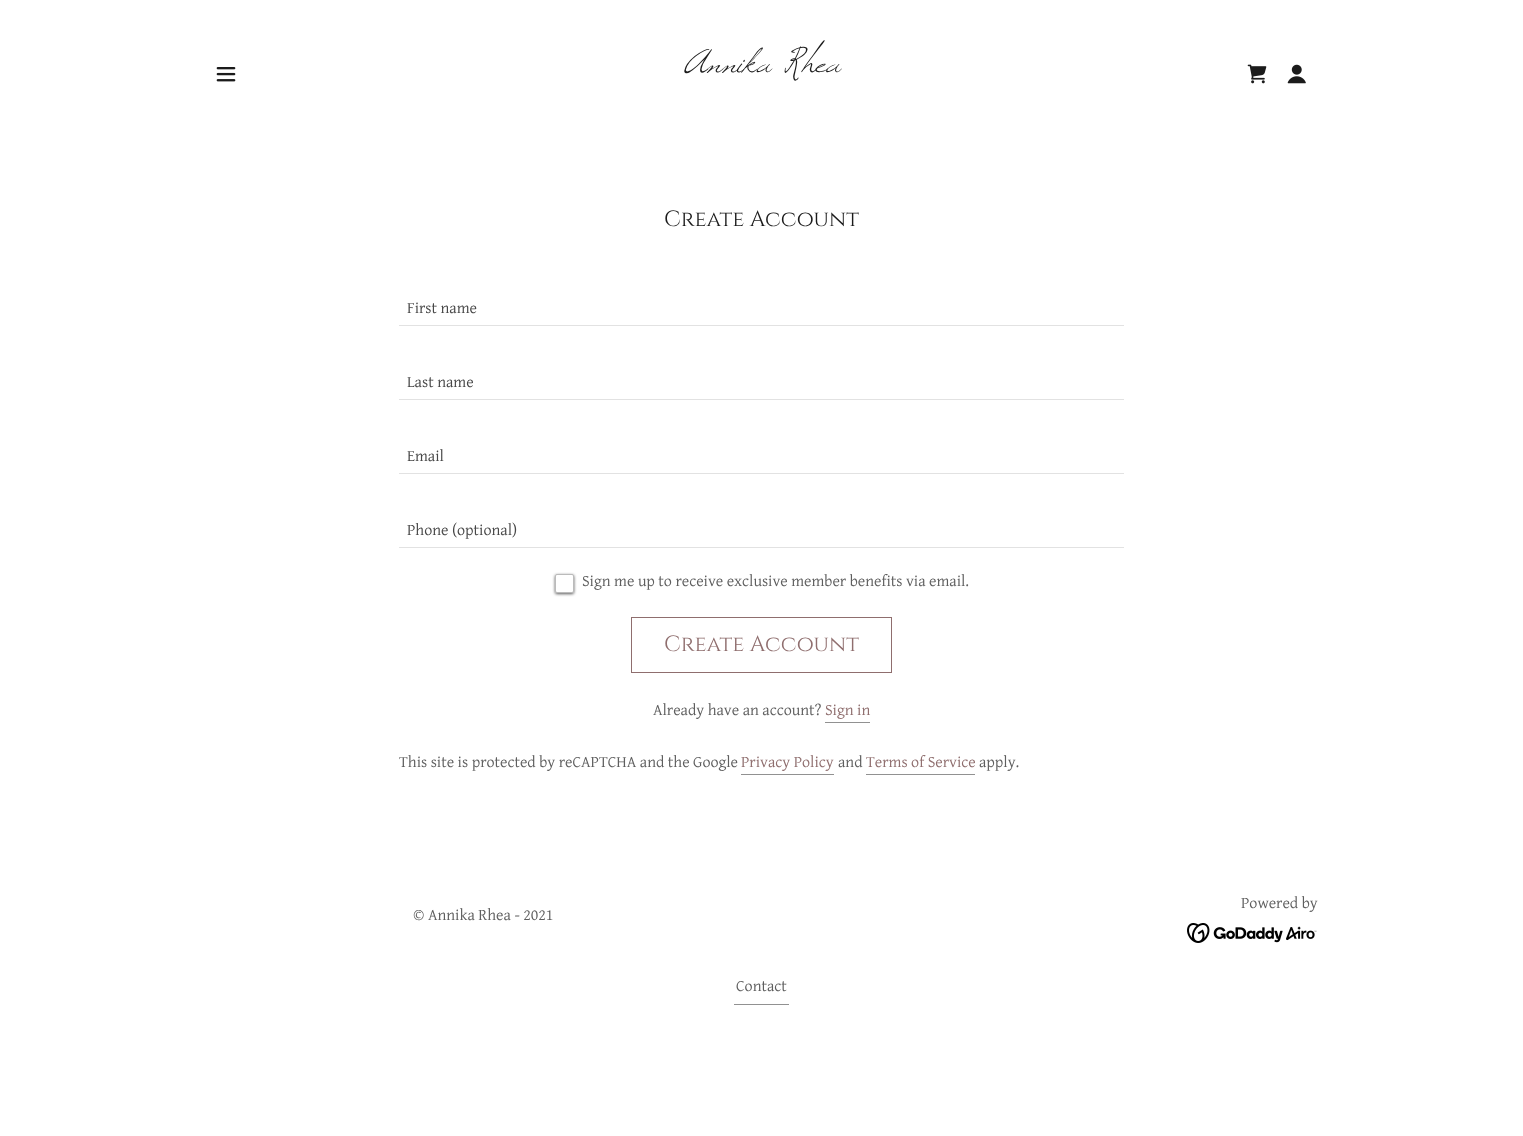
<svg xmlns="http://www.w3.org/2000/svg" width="1523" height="1136">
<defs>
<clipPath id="clip1"><path d="M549 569h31v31h-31zm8 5h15c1 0 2 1 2 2v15c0 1-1 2-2 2h-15c-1 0-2-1-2-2v-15c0-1 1-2 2-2z" clip-rule="evenodd"/></clipPath>
</defs>
<rect width="100%" height="100%" fill="#fff"/>
<image x="216" y="67" width="20" height="15" href="media/1.png"/>
<text x="683" y="72" style="font-family:Windsong;font-size:44px;fill:#1b1b1b">Annika Rhea</text>
<image x="1247" y="64" width="20" height="20" href="media/2.png"/>
<image x="1287" y="64" width="19" height="20" href="media/3.png"/>
<text x="664" y="226" style="font-family:Cinzel;font-size:22px;fill:#1b1b1b">Create Account</text>
<rect x="399" y="325" width="725" height="1" fill="#e2e2e2"/>
<text x="407" y="313" style="font-family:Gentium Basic;font-size:16px;fill:#474747">First name</text>
<rect x="399" y="399" width="725" height="1" fill="#e2e2e2"/>
<text x="407" y="387" style="font-family:Gentium Basic;font-size:16px;fill:#474747">Last name</text>
<rect x="399" y="473" width="725" height="1" fill="#e2e2e2"/>
<text x="407" y="461" style="font-family:Gentium Basic;font-size:16px;fill:#474747">Email</text>
<rect x="399" y="547" width="725" height="1" fill="#e2e2e2"/>
<text x="407" y="535" style="font-family:Gentium Basic;font-size:16px;fill:#474747">Phone (optional)</text>
<g clip-path="url(#clip1)">
<rect x="555" y="575" width="19" height="19" rx="2" fill="#595959" filter="blur(1.5px)"/>
</g>
<rect x="555.5" y="574.5" width="18" height="18" rx="1.5" fill="none" stroke="#77777780"/>
<text x="582" y="586" style="font-family:Gentium Basic;font-size:16px;fill:#5e5e5e">Sign me up to receive exclusive member benefits via email.</text>
<rect x="631.5" y="617.5" width="260" height="55" fill="none" stroke="#8f6e6e"/>
<text x="664" y="651" style="font-family:Cinzel;font-size:22px;fill:#8f6e6e">Create Account</text>
<text x="653" y="715" style="font-family:Gentium Basic;font-size:16px;fill:#5e5e5e">Already have an account?</text>
<text x="825" y="715" style="font-family:Gentium Basic;font-size:16px;fill:#8f6e6e">Sign in</text>
<rect x="825" y="722" width="45" height="1" fill="#919191"/>
<text x="399" y="767" style="font-family:Gentium Basic;font-size:16px;fill:#5e5e5e">This site is protected by reCAPTCHA and the Google</text>
<text x="741" y="767" style="font-family:Gentium Basic;font-size:16px;fill:#8f6e6e">Privacy Policy</text>
<rect x="741" y="774" width="93" height="1" fill="#919191"/>
<text x="838" y="767" style="font-family:Gentium Basic;font-size:16px;fill:#5e5e5e">and</text>
<text x="866" y="767" style="font-family:Gentium Basic;font-size:16px;fill:#8f6e6e">Terms of Service</text>
<rect x="866" y="774" width="109" height="1" fill="#919191"/>
<text x="979" y="767" style="font-family:Gentium Basic;font-size:16px;fill:#5e5e5e">apply.</text>
<text x="1241" y="908" style="font-family:Gentium Basic;font-size:16px;fill:#5e5e5e">Powered by</text>
<image x="1187" y="923" width="130" height="20" href="media/4.png"/>
<text x="413" y="920" style="font-family:Gentium Basic;font-size:16px;fill:#5e5e5e">© Annika Rhea - 2021</text>
<rect x="734" y="1004" width="55" height="1" fill="#919191"/>
<text x="736" y="991" style="font-family:Gentium Basic;font-size:16px;fill:#5e5e5e">Contact</text>
</svg>
